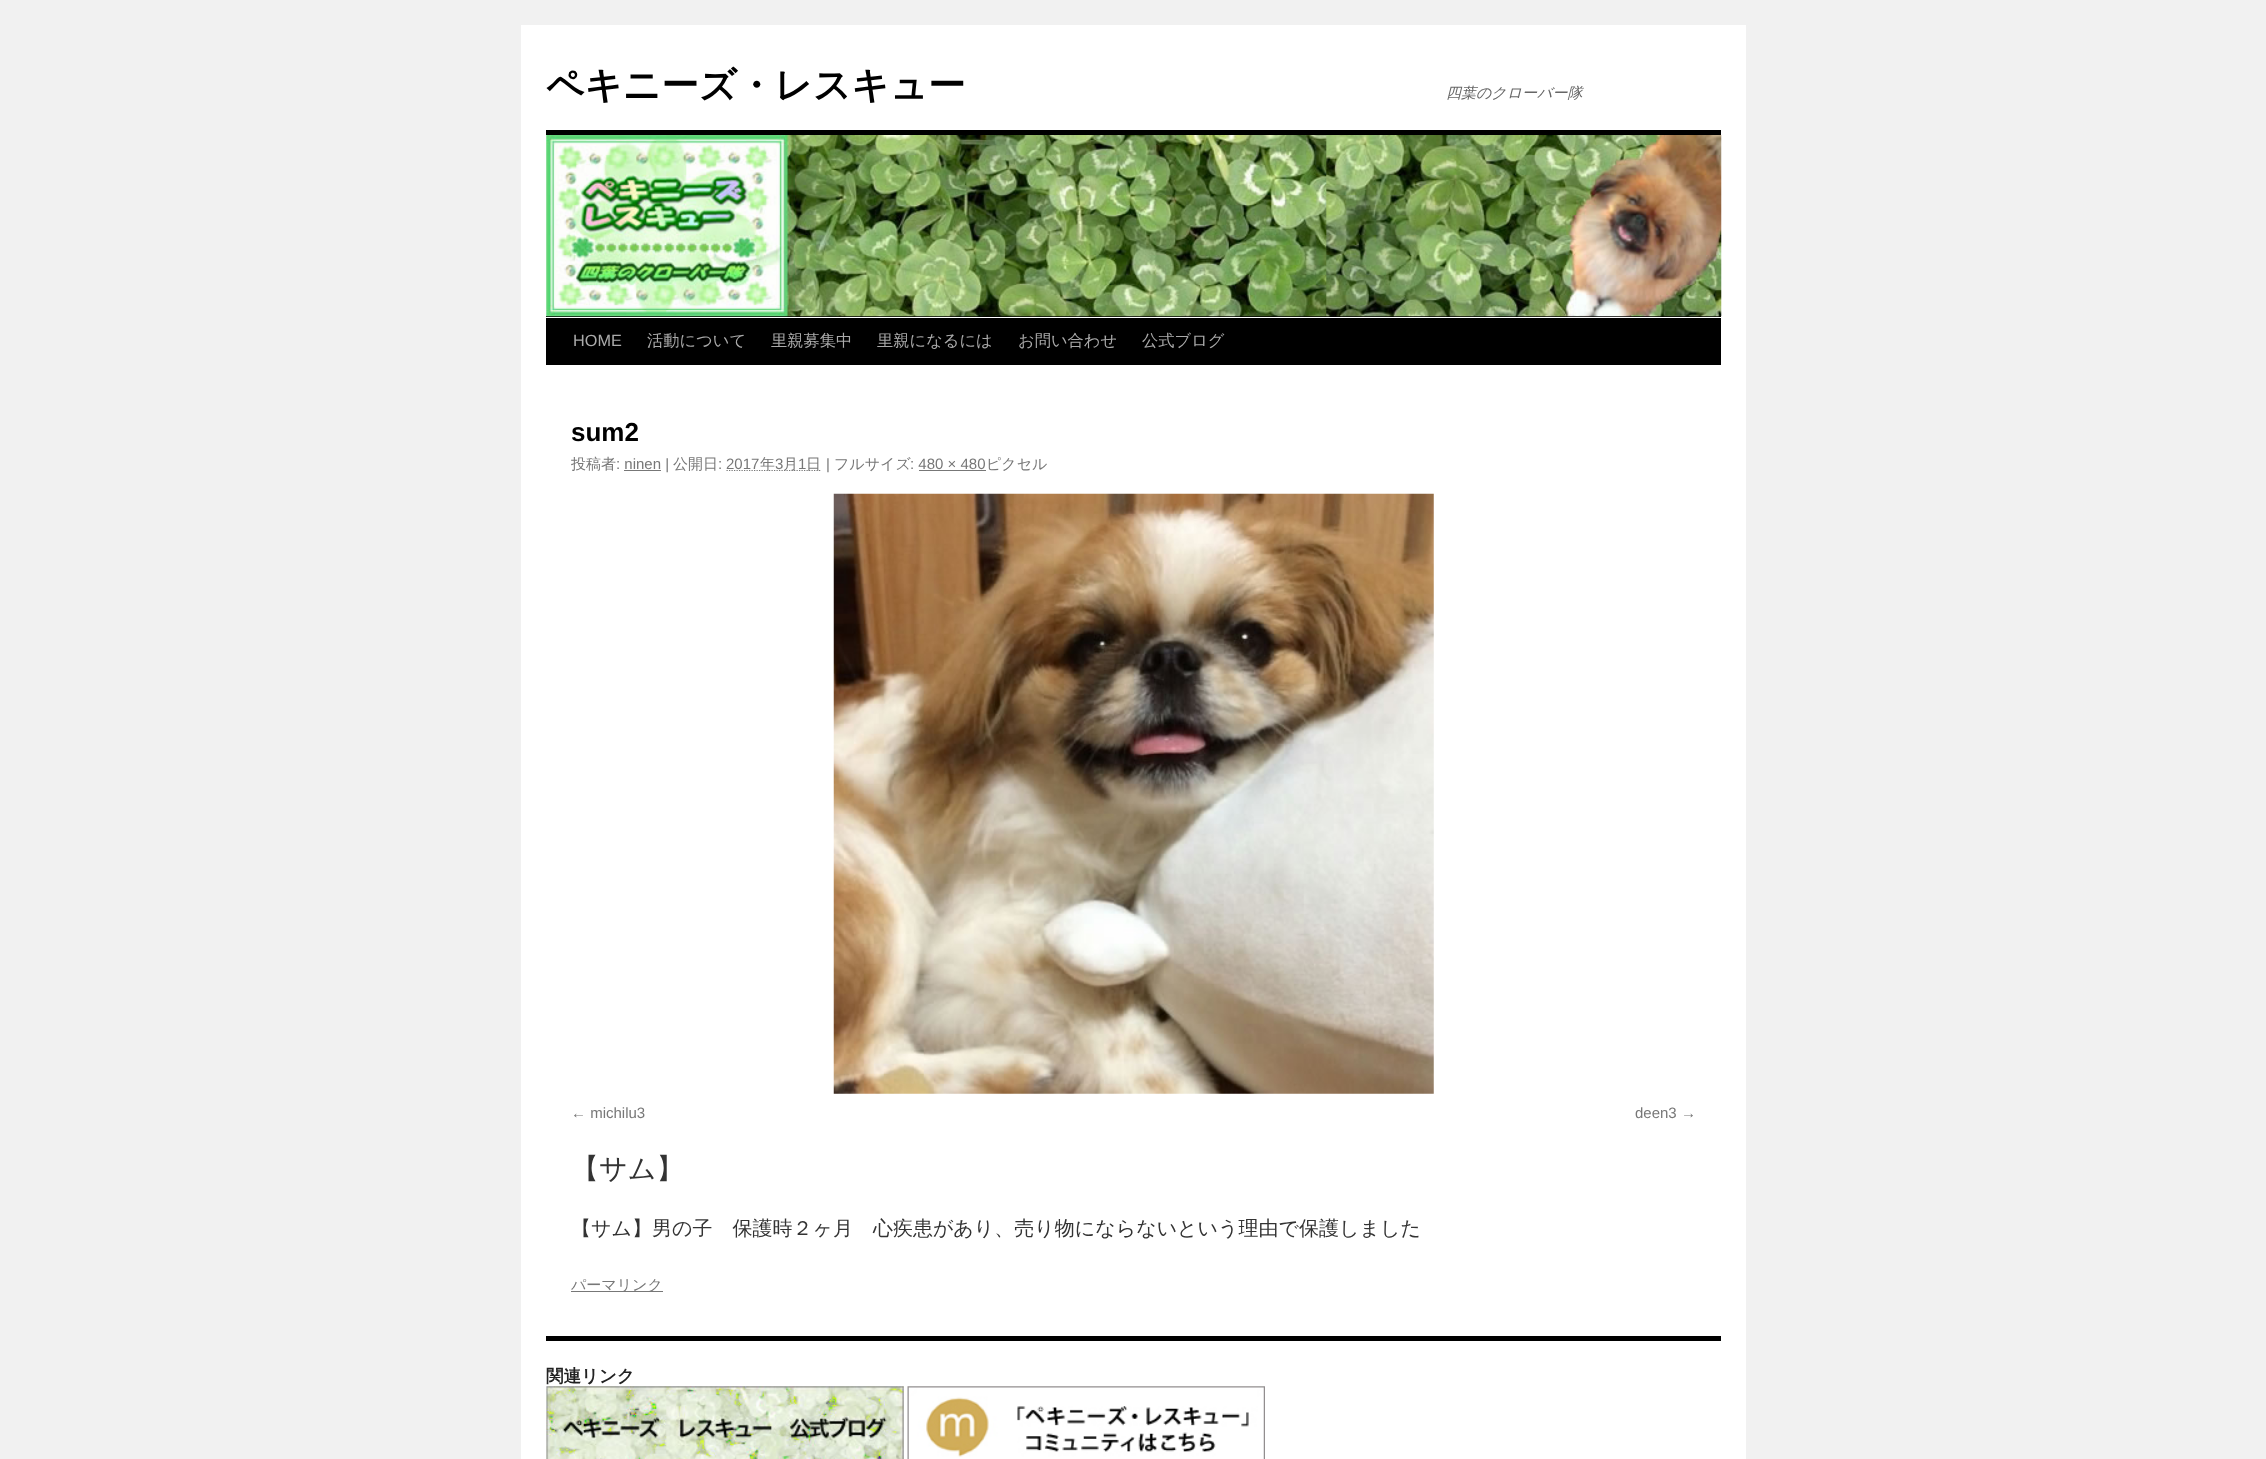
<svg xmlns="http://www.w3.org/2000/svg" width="2266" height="1459">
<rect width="100%" height="100%" fill="#f1f1f1"/>
<rect x="521" y="25" width="1225" height="1434" fill="#fff"/>
<text x="546" y="98" style="font-family:WenQuanYi Zen Hei;font-size:37.5px;font-weight:bold;fill:#000">ペキニーズ・レスキュー</text>
<text x="1446" y="98" style="font-family:WenQuanYi Zen Hei;font-size:15px;font-weight:500;font-style:italic;fill:#666">四葉のクローバー隊</text>
<rect x="546" y="130" width="1175" height="5" fill="#000"/>
<rect x="546" y="316" width="1175" height="1" fill="#000"/>
<image x="546" y="135" width="1176" height="182" href="media/1.png"/>
<rect x="546" y="318" width="1175" height="47" fill="#000"/>
<text x="573" y="346" style="font-family:Liberation Sans;font-size:16.25px;fill:#aaa">HOME</text>
<text x="647" y="346" style="font-family:WenQuanYi Zen Hei;font-size:16.25px;font-weight:500;fill:#aaa">活動について</text>
<text x="771" y="346" style="font-family:WenQuanYi Zen Hei;font-size:16.25px;font-weight:500;fill:#aaa">里親募集中</text>
<text x="877" y="346" style="font-family:WenQuanYi Zen Hei;font-size:16.25px;font-weight:500;fill:#aaa">里親になるには</text>
<text x="1018" y="346" style="font-family:WenQuanYi Zen Hei;font-size:16.25px;font-weight:500;fill:#aaa">お問い合わせ</text>
<text x="1142" y="346" style="font-family:WenQuanYi Zen Hei;font-size:16.25px;font-weight:500;fill:#aaa">公式ブログ</text>
<text x="571" y="441" style="font-family:Liberation Sans;font-size:26px;font-weight:bold;fill:#000">sum2</text>
<text x="571" y="469" style="font-family:WenQuanYi Zen Hei;font-size:15px;font-weight:500;fill:#777">投稿者</text>
<text x="616" y="469" style="font-family:Liberation Sans;font-size:15px;fill:#777">: ninen |</text>
<text x="673" y="469" style="font-family:WenQuanYi Zen Hei;font-size:15px;font-weight:500;fill:#777">公開日</text>
<text x="718" y="469" style="font-family:Liberation Sans;font-size:15px;fill:#777">:</text>
<path d="M726.5 470.5h95" fill="none" stroke="#777" stroke-width="1.2" stroke-dasharray="1.25 1.25"/>
<text x="726" y="469" style="font-family:Liberation Sans;font-size:15px;fill:#777">2017</text>
<text x="760" y="469" style="font-family:WenQuanYi Zen Hei;font-size:15px;font-weight:500;fill:#777">年</text>
<text x="775" y="469" style="font-family:Liberation Sans;font-size:15px;fill:#777">3</text>
<text x="783" y="469" style="font-family:WenQuanYi Zen Hei;font-size:15px;font-weight:500;fill:#777">月</text>
<text x="798" y="469" style="font-family:Liberation Sans;font-size:15px;fill:#777">1</text>
<text x="806" y="469" style="font-family:WenQuanYi Zen Hei;font-size:15px;font-weight:500;fill:#777">日</text>
<text x="826" y="469" style="font-family:Liberation Sans;font-size:15px;fill:#777">|</text>
<text x="834" y="469" style="font-family:WenQuanYi Zen Hei;font-size:15px;font-weight:500;fill:#777">フルサイズ</text>
<text x="910" y="469" style="font-family:Liberation Sans;font-size:15px;fill:#777">: 480 × 480</text>
<text x="986" y="469" style="font-family:WenQuanYi Zen Hei;font-size:15px;font-weight:500;fill:#777">ピクセル</text>
<rect x="624" y="470" width="37" height="1" fill="#777"/>
<rect x="919" y="470" width="67" height="1" fill="#777"/>
<image x="833" y="493" width="601" height="601" href="media/2.png"/>
<text x="571" y="1118" style="font-family:Liberation Sans;font-size:15px;fill:#777">← michilu3</text>
<text x="1635" y="1118" style="font-family:Liberation Sans;font-size:15px;fill:#777">deen3 →</text>
<text x="571" y="1178" style="font-family:WenQuanYi Zen Hei;font-size:28px;font-weight:500;fill:#333">【サム】</text>
<text x="571" y="1235" style="font-family:WenQuanYi Zen Hei;font-size:20px;font-weight:500;fill:#333">【サム】男の子　保護時２ヶ月　心疾患があり、売り物にならないという理由で保護しました</text>
<rect x="571" y="1291" width="92" height="1" fill="#777"/>
<text x="571" y="1290" style="font-family:WenQuanYi Zen Hei;font-size:15px;font-weight:500;fill:#777">パーマリンク</text>
<rect x="546" y="1336" width="1175" height="5" fill="#000"/>
<text x="546" y="1382" style="font-family:WenQuanYi Zen Hei;font-size:17.5px;font-weight:bold;fill:#222">関連リンク</text>
<image x="546" y="1386" width="358" height="73" href="media/3.png"/>
<image x="907" y="1386" width="358" height="73" href="media/4.png"/>
</svg>
